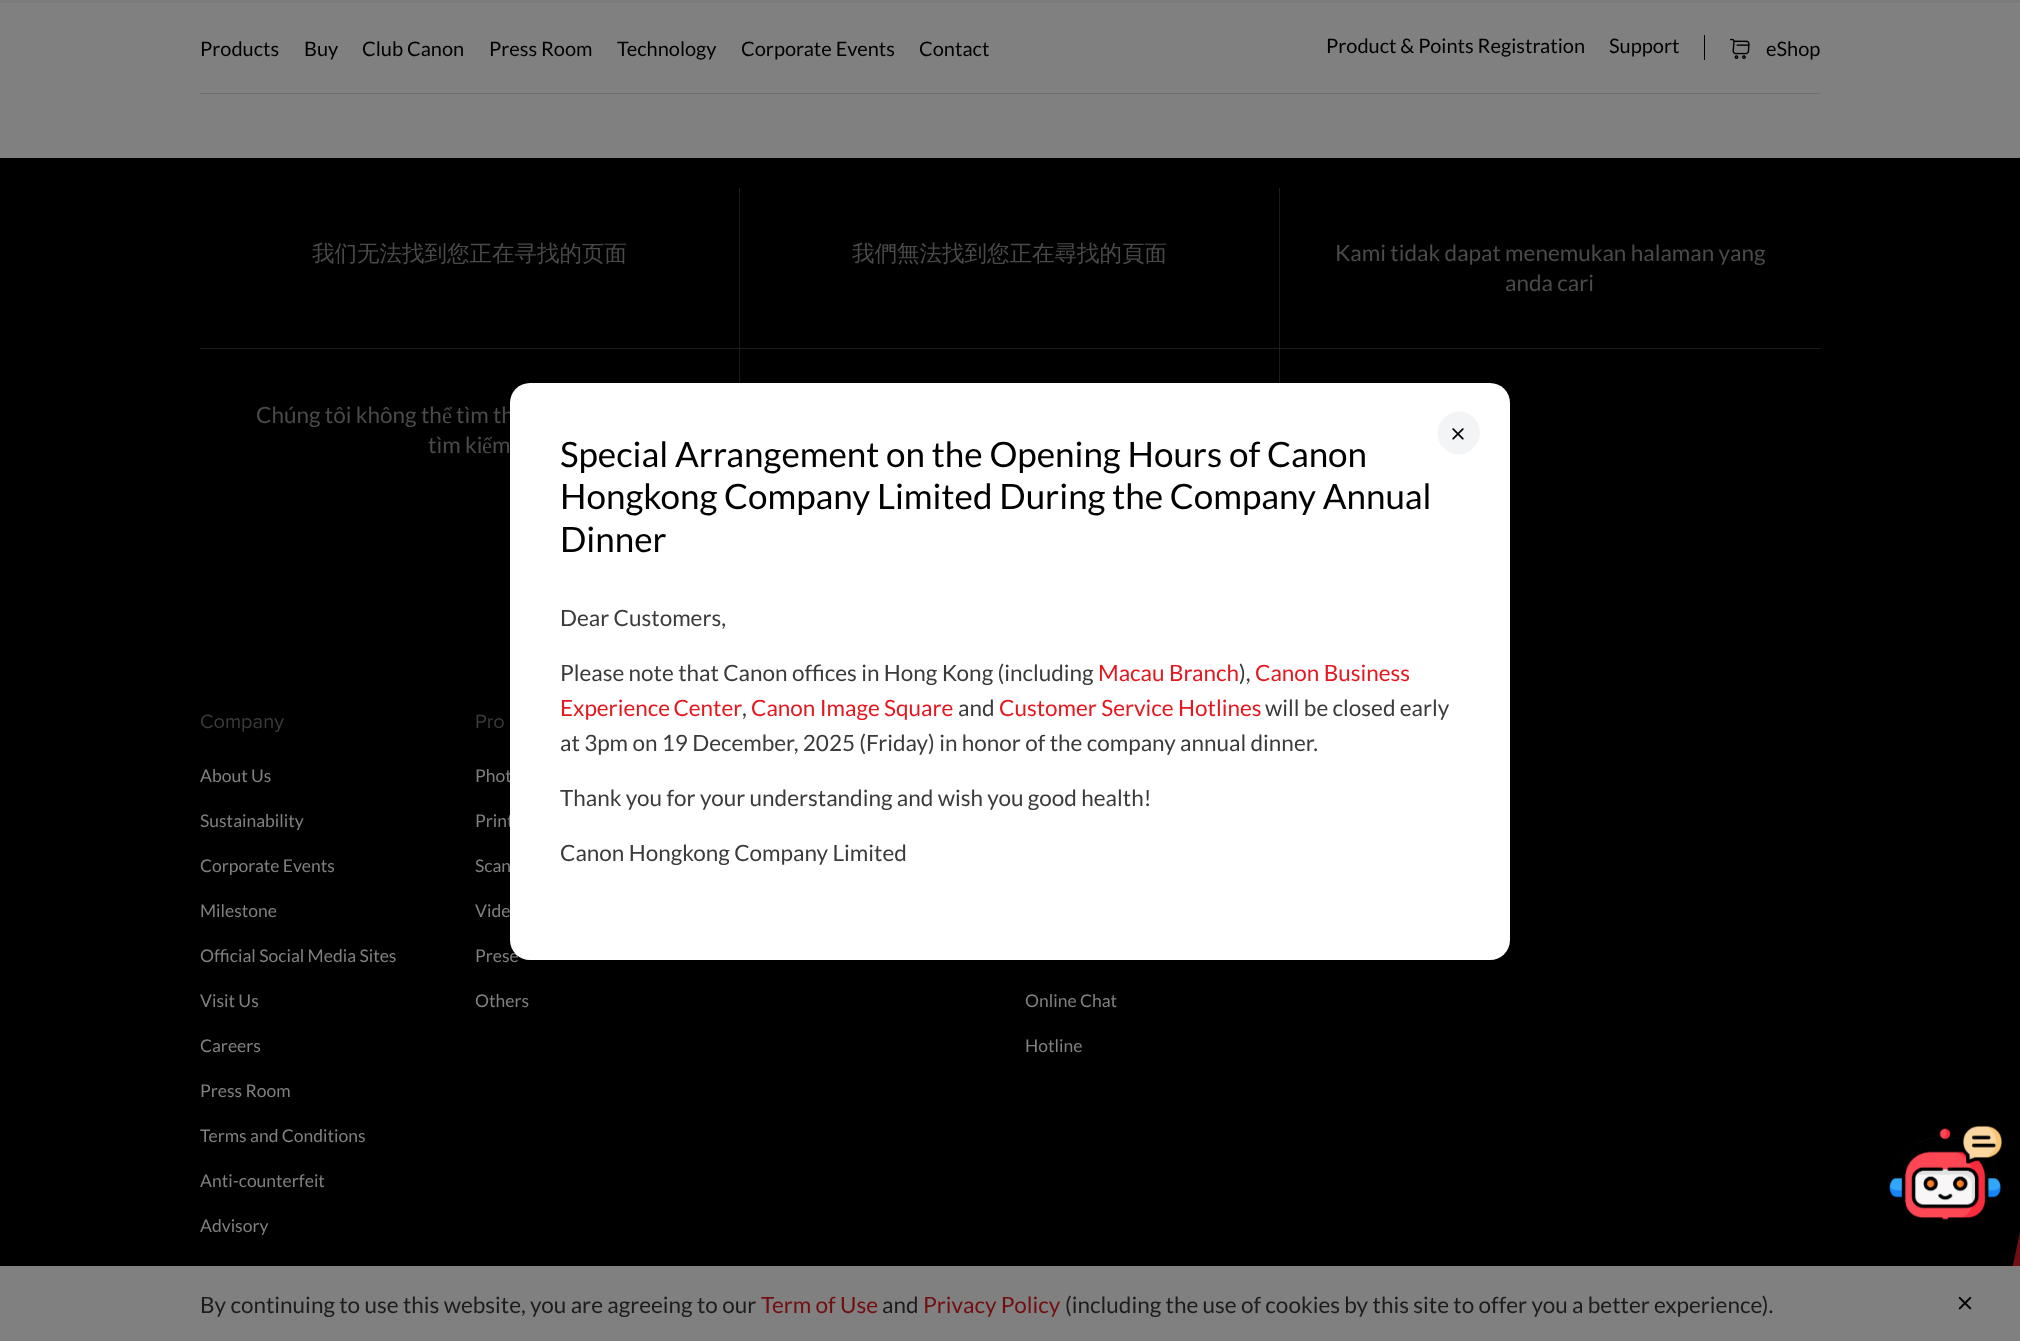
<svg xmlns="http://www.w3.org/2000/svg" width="2020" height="1341">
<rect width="100%" height="100%" fill="#000"/>
<rect width="2020" height="3" fill="#7a7a7b"/>
<rect y="3" width="2020" height="155" fill="#808080"/>
<text x="200" y="56" style="font-family:Lato;font-size:20px;fill:#000">Products</text>
<text x="304" y="56" style="font-family:Lato;font-size:20px;fill:#000">Buy</text>
<text x="362" y="56" style="font-family:Lato;font-size:20px;fill:#000">Club Canon</text>
<text x="489" y="56" style="font-family:Lato;font-size:20px;fill:#000">Press Room</text>
<text x="617" y="56" style="font-family:Lato;font-size:20px;fill:#000">Technology</text>
<text x="741" y="56" style="font-family:Lato;font-size:20px;fill:#000">Corporate Events</text>
<text x="919" y="56" style="font-family:Lato;font-size:20px;fill:#000">Contact</text>
<text x="1326" y="53" style="font-family:Lato;font-size:20px;fill:#000">Product &amp; Points Registration</text>
<text x="1609" y="53" style="font-family:Lato;font-size:20px;fill:#000">Support</text>
<rect x="1704" y="35" width="1" height="25" fill="#000"/>
<image x="1730" y="38" width="20" height="21" href="media/1.png"/>
<text x="1766" y="56" style="font-family:Lato;font-size:20px;fill:#000">eShop</text>
<rect x="200" y="93" width="1620" height="1" fill="#6e6e6e"/>
<rect x="200" y="348" width="1620" height="1" fill="#1c1c1c"/>
<rect x="739" y="188" width="1" height="160" fill="#1c1c1c"/>
<text x="312" y="261" style="font-family:WenQuanYi Zen Hei;font-size:22.5px;font-weight:500;fill:#4a4a4a">我们无法找到您正在寻找的页面</text>
<rect x="1279" y="188" width="1" height="160" fill="#1c1c1c"/>
<text x="852" y="261" style="font-family:WenQuanYi Zen Hei;font-size:22.5px;font-weight:500;fill:#4a4a4a">我們無法找到您正在尋找的頁面</text>
<text x="1335" y="261" style="font-family:Lato;font-size:22.5px;fill:#4a4a4a">Kami tidak dapat menemukan halaman yang</text>
<text x="1505" y="291" style="font-family:Lato;font-size:22.5px;fill:#4a4a4a">anda cari</text>
<rect x="1279" y="349" width="1" height="34" fill="#1c1c1c"/>
<rect x="739" y="349" width="1" height="34" fill="#1c1c1c"/>
<text x="256" y="423" style="font-family:Lato;font-size:22.5px;fill:#4a4a4a">Chúng tôi không th</text>
<text x="442" y="423" style="font-family:Liberation Serif;font-size:22.5px;fill:#4a4a4a">ể</text>
<text x="456" y="423" style="font-family:Lato;font-size:22.5px;fill:#4a4a4a">tìm th</text>
<text x="428" y="453" style="font-family:Lato;font-size:22.5px;fill:#4a4a4a">tìm ki</text>
<text x="482" y="453" style="font-family:Liberation Serif;font-size:22.5px;fill:#4a4a4a">ế</text>
<text x="492" y="453" style="font-family:Lato;font-size:22.5px;fill:#4a4a4a">m</text>
<text x="475" y="782" style="font-family:Lato;font-size:17.5px;fill:#808080">Phot</text>
<text x="475" y="827" style="font-family:Lato;font-size:17.5px;fill:#808080">Print</text>
<text x="475" y="962" style="font-family:Lato;font-size:17.5px;fill:#808080">Prese</text>
<rect x="510" y="383" width="1000" height="577" rx="20" fill="#fff"/>
<path d="M1474 418c19 20-11 50-30 30c-20-20 10-50 30-30z" fill="#f3f4f6"/>
<image x="1452" y="428" width="12" height="12" href="media/2.png"/>
<text x="560" y="467" style="font-family:Lato;font-size:35px;fill:#000">Special Arrangement on the Opening Hours of Canon</text>
<text x="560" y="509" style="font-family:Lato;font-size:35px;fill:#000">Hongkong Company Limited During the Company Annual</text>
<text x="560" y="552" style="font-family:Lato;font-size:35px;fill:#000">Dinner</text>
<text x="560" y="626" style="font-family:Lato;font-size:22.5px;fill:#3b3b3b">Dear Customers,</text>
<text x="560" y="681" style="font-family:Lato;font-size:22.5px;fill:#3b3b3b">Please note that Canon offices in Hong Kong (including</text>
<text x="1098" y="681" style="font-family:Lato;font-size:22.5px;fill:#e41920">Macau Branch</text>
<text x="1239" y="681" style="font-family:Lato;font-size:22.5px;fill:#3b3b3b">),</text>
<text x="1255" y="681" style="font-family:Lato;font-size:22.5px;fill:#e41920">Canon Business</text>
<text x="560" y="716" word-spacing="-1" style="font-family:Lato;font-size:22.5px;fill:#e41920">Experience Center</text>
<text x="742" y="716" style="font-family:Lato;font-size:22.5px;fill:#3b3b3b">,</text>
<text x="751" y="716" style="font-family:Lato;font-size:22.5px;fill:#e41920">Canon Image Square</text>
<text x="958" y="716" style="font-family:Lato;font-size:22.5px;fill:#3b3b3b">and</text>
<text x="999" y="716" style="font-family:Lato;font-size:22.5px;fill:#e41920">Customer Service Hotlines</text>
<text x="1265" y="716" style="font-family:Lato;font-size:22.5px;fill:#3b3b3b">will be closed early</text>
<text x="560" y="751" style="font-family:Lato;font-size:22.5px;fill:#3b3b3b">at 3pm on 19 December, 2025 (Friday) in honor of the company annual dinner.</text>
<text x="560" y="806" style="font-family:Lato;font-size:22.5px;fill:#3b3b3b">Thank you for your understanding and wish you good health!</text>
<text x="560" y="861" style="font-family:Lato;font-size:22.5px;fill:#3b3b3b">Canon Hongkong Company Limited</text>
<path d="M1874 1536l-82-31l170-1l58-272v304z" fill="#701014"/>
<text x="200" y="728" style="font-family:Proxima Nova;font-size:20px;fill:#3b3b3b">Company</text>
<text x="200" y="782" style="font-family:Lato;font-size:17.5px;fill:#808080">About Us</text>
<text x="200" y="827" style="font-family:Lato;font-size:17.5px;fill:#808080">Sustainability</text>
<text x="200" y="872" style="font-family:Lato;font-size:17.5px;fill:#808080">Corporate Events</text>
<text x="200" y="917" style="font-family:Lato;font-size:17.5px;fill:#808080">Milestone</text>
<text x="200" y="962" style="font-family:Lato;font-size:17.5px;fill:#808080">Official Social Media Sites</text>
<text x="200" y="1007" style="font-family:Lato;font-size:17.5px;fill:#808080">Visit Us</text>
<text x="200" y="1052" style="font-family:Lato;font-size:17.5px;fill:#808080">Careers</text>
<text x="200" y="1097" style="font-family:Lato;font-size:17.5px;fill:#808080">Press Room</text>
<text x="200" y="1142" style="font-family:Lato;font-size:17.5px;fill:#808080">Terms and Conditions</text>
<text x="200" y="1187" style="font-family:Lato;font-size:17.5px;fill:#808080">Anti-counterfeit</text>
<text x="200" y="1232" style="font-family:Lato;font-size:17.5px;fill:#808080">Advisory</text>
<text x="475" y="728" style="font-family:Proxima Nova;font-size:20px;fill:#3b3b3b">Pro</text>
<text x="475" y="872" style="font-family:Lato;font-size:17.5px;fill:#808080">Scan</text>
<text x="475" y="917" style="font-family:Lato;font-size:17.5px;fill:#808080">Vide</text>
<text x="475" y="1007" style="font-family:Lato;font-size:17.5px;fill:#808080">Others</text>
<text x="1025" y="1007" style="font-family:Lato;font-size:17.5px;fill:#808080">Online Chat</text>
<text x="1025" y="1052" style="font-family:Lato;font-size:17.5px;fill:#808080">Hotline</text>
<image x="1889" y="1125" width="113" height="95" href="media/3.png"/>
<rect y="1266" width="2020" height="75" fill="#808080"/>
<text x="200" y="1313" style="font-family:Lato;font-size:22.5px;fill:#1c1c1c">By continuing to use this website, you are agreeing to our</text>
<text x="761" y="1313" style="font-family:Lato;font-size:22.5px;fill:#720d10">Term of Use</text>
<text x="882" y="1313" style="font-family:Lato;font-size:22.5px;fill:#1c1c1c">and</text>
<text x="923" y="1313" style="font-family:Lato;font-size:22.5px;fill:#720d10">Privacy Policy</text>
<text x="1065" y="1313" style="font-family:Lato;font-size:22.5px;fill:#1c1c1c">(including the use of cookies by this site to offer you a better experience).</text>
<image x="1958" y="1296" width="14" height="14" href="media/4.png"/>
</svg>
